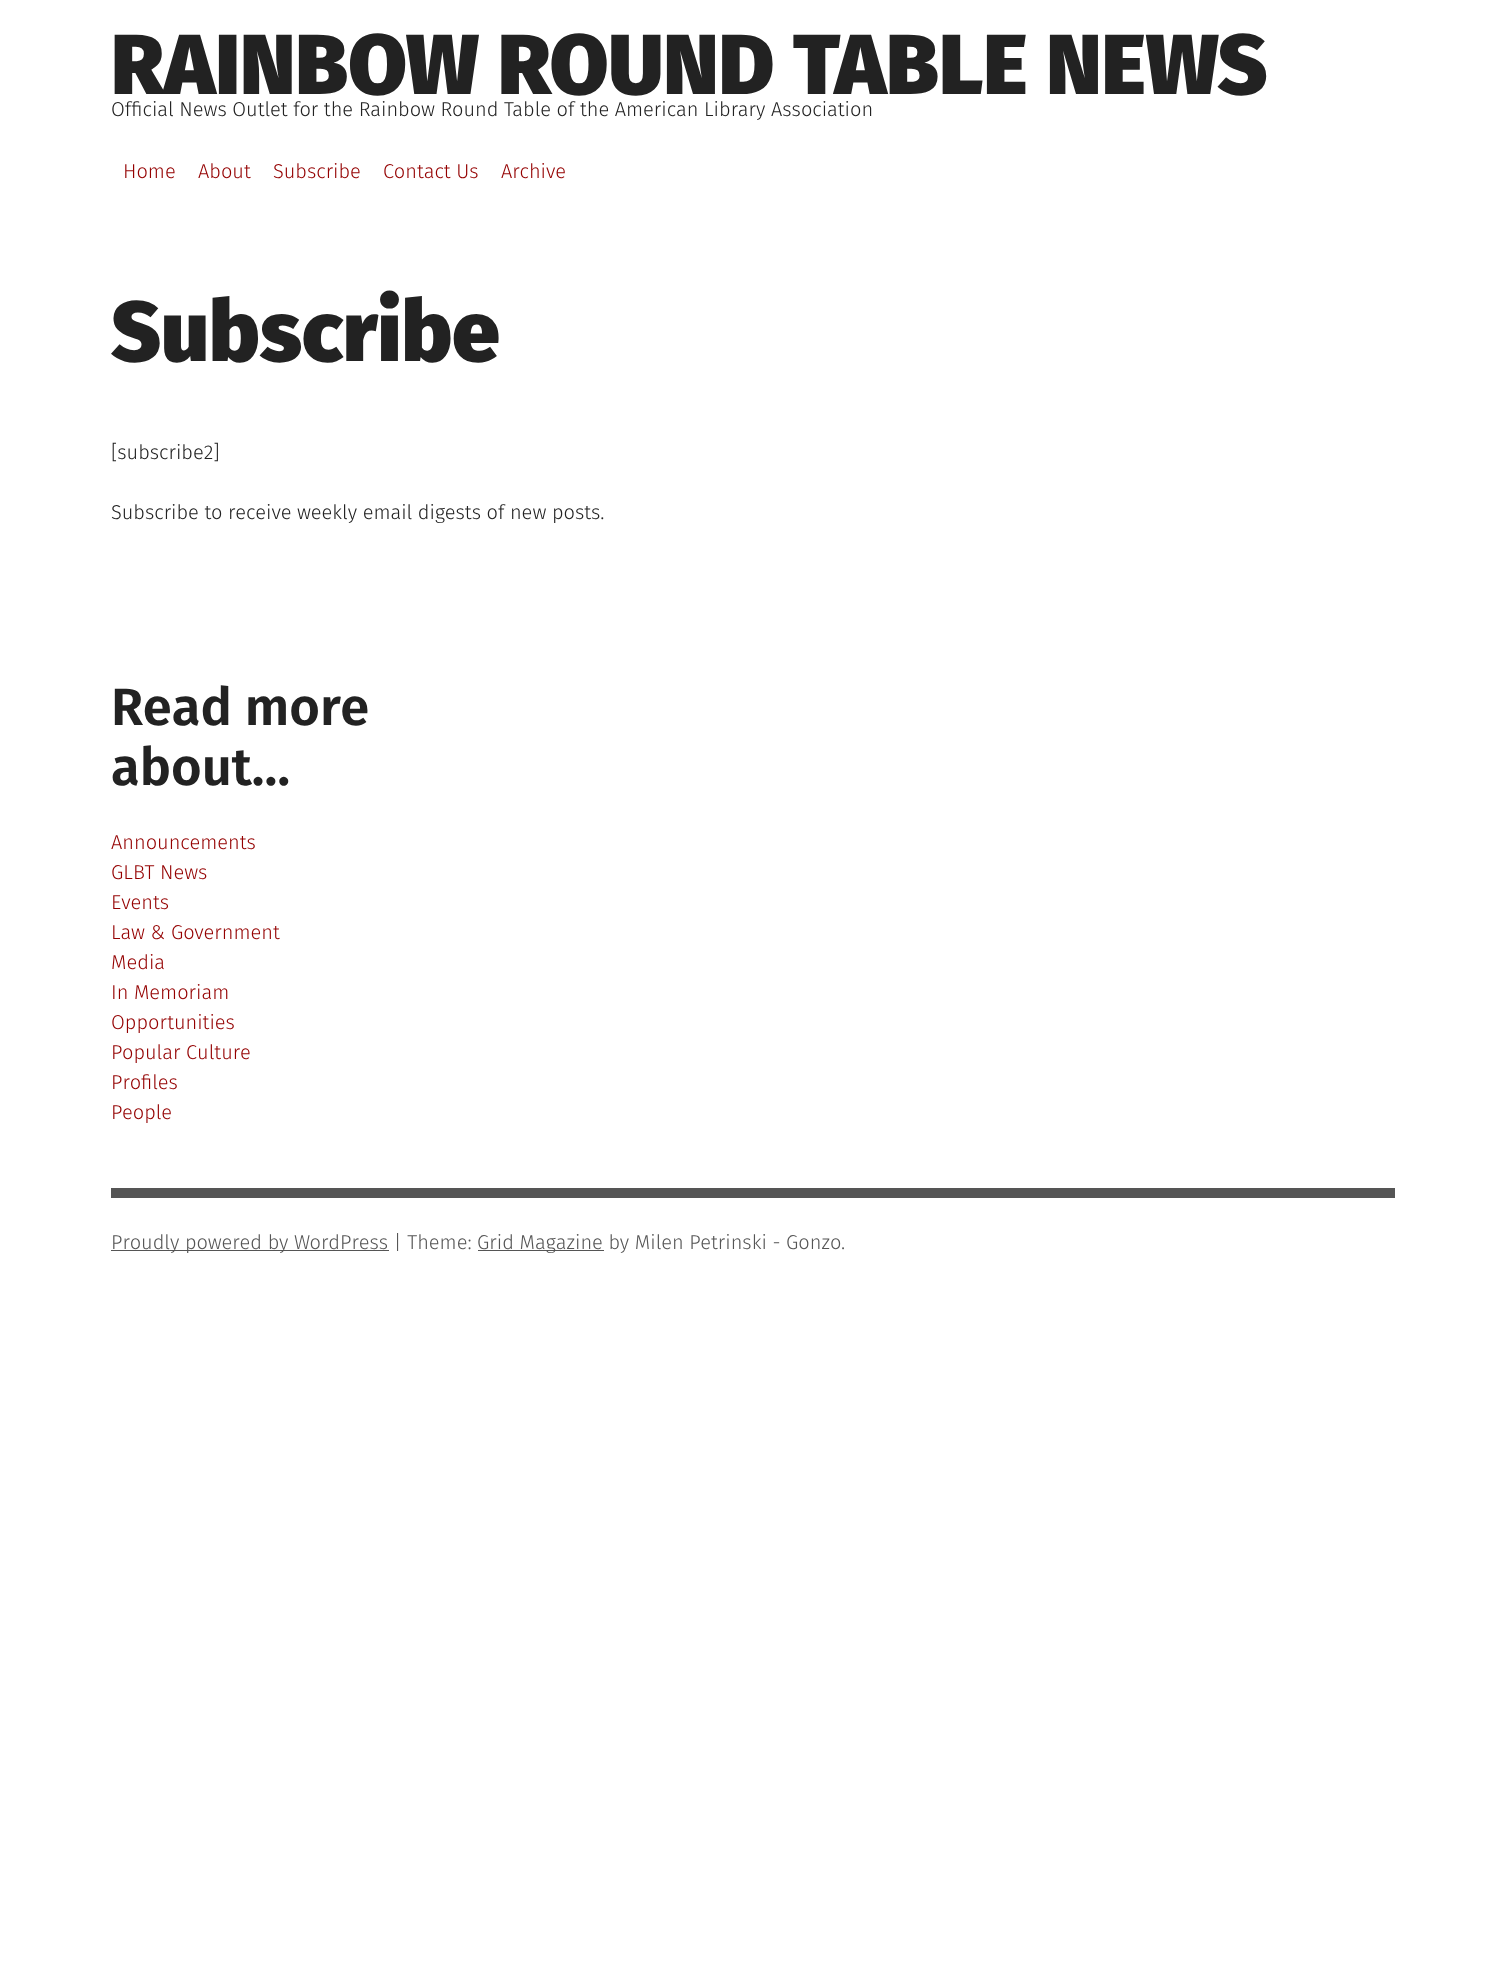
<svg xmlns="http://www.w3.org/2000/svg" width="1506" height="1962">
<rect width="100%" height="100%" fill="#fff"/>
<text x="111" y="94" style="font-family:Fira Sans;font-size:85px;font-weight:900;fill:#222">RAINBOW ROUND TABLE NEWS</text>
<text x="111" y="116" style="font-family:Fira Sans;font-size:20px;font-weight:300;fill:#222">Official News Outlet for the Rainbow Round Table of the American Library Association</text>
<text x="123" y="178" style="font-family:Fira Sans;font-size:20px;font-weight:300;fill:#940000">Home</text>
<text x="198" y="178" style="font-family:Fira Sans;font-size:20px;font-weight:300;fill:#940000">About</text>
<text x="273" y="178" style="font-family:Fira Sans;font-size:20px;font-weight:300;fill:#940000">Subscribe</text>
<text x="383" y="178" style="font-family:Fira Sans;font-size:20px;font-weight:300;fill:#940000">Contact Us</text>
<text x="501" y="178" style="font-family:Fira Sans;font-size:20px;font-weight:300;fill:#940000">Archive</text>
<text x="111" y="361" style="font-family:Fira Sans;font-size:85px;font-weight:900;fill:#222">Subscribe</text>
<text x="111" y="459" style="font-family:Fira Sans;font-size:20px;font-weight:300;fill:#222">[subscribe2]</text>
<text x="111" y="519" style="font-family:Fira Sans;font-size:20px;font-weight:300;fill:#222">Subscribe to receive weekly email digests of new posts.</text>
<text x="111" y="725" style="font-family:Fira Sans;font-size:52.5px;font-weight:600;fill:#222">Read more</text>
<text x="111" y="785" style="font-family:Fira Sans;font-size:52.5px;font-weight:600;fill:#222">about…</text>
<text x="111" y="849" style="font-family:Fira Sans;font-size:20px;font-weight:300;fill:#940000">Announcements</text>
<text x="111" y="879" style="font-family:Fira Sans;font-size:20px;font-weight:300;fill:#940000">GLBT News</text>
<text x="111" y="909" style="font-family:Fira Sans;font-size:20px;font-weight:300;fill:#940000">Events</text>
<text x="111" y="939" style="font-family:Fira Sans;font-size:20px;font-weight:300;fill:#940000">Law &amp; Government</text>
<text x="111" y="969" style="font-family:Fira Sans;font-size:20px;font-weight:300;fill:#940000">Media</text>
<text x="111" y="999" style="font-family:Fira Sans;font-size:20px;font-weight:300;fill:#940000">In Memoriam</text>
<text x="111" y="1029" style="font-family:Fira Sans;font-size:20px;font-weight:300;fill:#940000">Opportunities</text>
<text x="111" y="1059" style="font-family:Fira Sans;font-size:20px;font-weight:300;fill:#940000">Popular Culture</text>
<text x="111" y="1089" style="font-family:Fira Sans;font-size:20px;font-weight:300;fill:#940000">Profiles</text>
<text x="111" y="1119" style="font-family:Fira Sans;font-size:20px;font-weight:300;fill:#940000">People</text>
<rect x="111" y="1188" width="1284" height="10" fill="#555"/>
<rect x="111" y="1250" width="278" height="1" fill="#555"/>
<text x="111" y="1249" style="font-family:Fira Sans;font-size:20px;font-weight:300;fill:#555">Proudly powered by WordPress | Theme:</text>
<rect x="478" y="1250" width="126" height="1" fill="#555"/>
<text x="477" y="1249" style="font-family:Fira Sans;font-size:20px;font-weight:300;fill:#555">Grid Magazine by Milen Petrinski - Gonzo.</text>
</svg>
